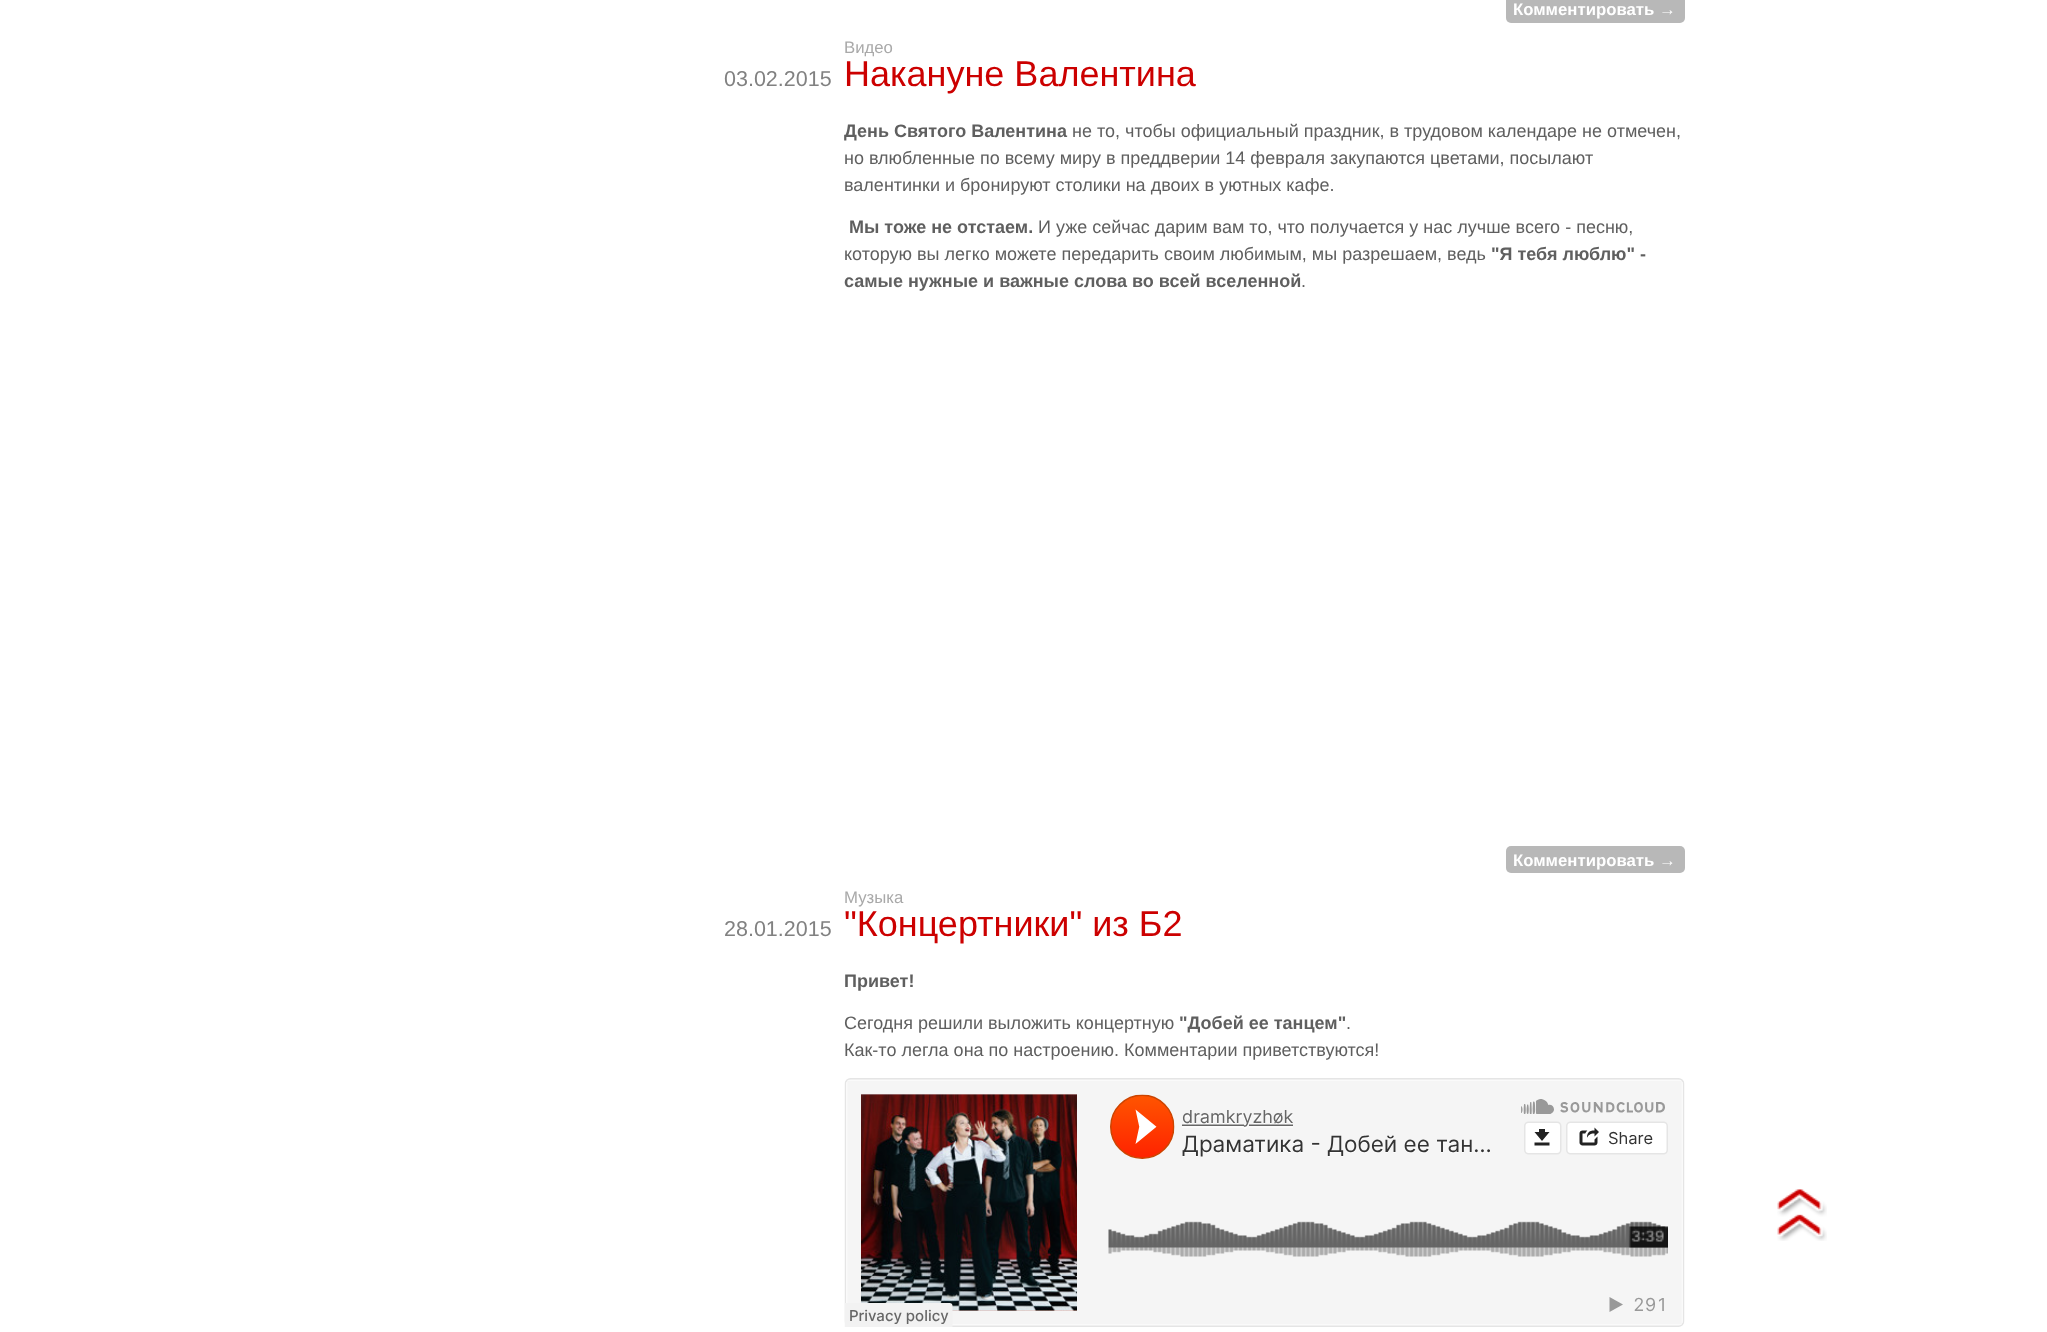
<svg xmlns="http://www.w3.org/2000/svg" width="2047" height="1332">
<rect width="100%" height="100%" fill="#fff"/>
<rect x="1506" y="-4" width="179" height="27" rx="5" fill="#b8b8b8"/>
<text x="1513" y="15" style="font-family:Liberation Sans;font-size:16.75px;font-weight:bold;fill:#fff">Комментировать →</text>
<text x="724" y="86" style="font-family:Liberation Sans;font-size:21.5px;fill:#818181">03.02.2015</text>
<text x="844" y="53" style="font-family:Liberation Sans;font-size:16.75px;fill:#a9a9a9">Видео</text>
<text x="844" y="86" style="font-family:Liberation Sans;font-size:36px;fill:#c00">Накануне Валентина</text>
<text x="844" y="137" style="font-family:Liberation Sans;font-size:18px;font-weight:bold;fill:#5f5f5f">День Святого Валентина</text>
<text x="1072" y="137" style="font-family:Liberation Sans;font-size:18px;fill:#5f5f5f">не то, чтобы официальный праздник, в трудовом календаре не отмечен,</text>
<text x="844" y="164" style="font-family:Liberation Sans;font-size:18px;fill:#5f5f5f">но влюбленные по всему миру в преддверии 14 февраля закупаются цветами, посылают</text>
<text x="844" y="191" style="font-family:Liberation Sans;font-size:18px;fill:#5f5f5f">валентинки и бронируют столики на двоих в уютных кафе.</text>
<text x="849" y="233" style="font-family:Liberation Sans;font-size:18px;font-weight:bold;fill:#5f5f5f">Мы тоже не отстаем.</text>
<text x="1038" y="233" style="font-family:Liberation Sans;font-size:18px;fill:#5f5f5f">И уже сейчас дарим вам то, что получается у нас лучше всего - песню,</text>
<text x="844" y="260" style="font-family:Liberation Sans;font-size:18px;fill:#5f5f5f">которую вы легко можете передарить своим любимым, мы разрешаем, ведь</text>
<text x="1491" y="260" style="font-family:Liberation Sans;font-size:18px;font-weight:bold;fill:#5f5f5f">"Я тебя люблю" -</text>
<text x="844" y="287" style="font-family:Liberation Sans;font-size:18px;font-weight:bold;fill:#5f5f5f">самые нужные и важные слова во всей вселенной</text>
<text x="1301" y="287" style="font-family:Liberation Sans;font-size:18px;fill:#5f5f5f">.</text>
<rect x="1506" y="846" width="179" height="27" rx="5" fill="#b8b8b8"/>
<text x="1513" y="866" style="font-family:Liberation Sans;font-size:16.75px;font-weight:bold;fill:#fff">Комментировать →</text>
<text x="724" y="936" style="font-family:Liberation Sans;font-size:21.5px;fill:#818181">28.01.2015</text>
<text x="844" y="903" style="font-family:Liberation Sans;font-size:16.75px;fill:#a9a9a9">Музыка</text>
<text x="844" y="936" style="font-family:Liberation Sans;font-size:36px;fill:#c00">"Концертники" из Б2</text>
<text x="844" y="987" style="font-family:Liberation Sans;font-size:18px;font-weight:bold;fill:#5f5f5f">Привет!</text>
<text x="844" y="1029" style="font-family:Liberation Sans;font-size:18px;fill:#5f5f5f">Сегодня решили выложить концертную</text>
<text x="1179" y="1029" style="font-family:Liberation Sans;font-size:18px;font-weight:bold;fill:#5f5f5f">"Добей ее танцем"</text>
<text x="1346" y="1029" style="font-family:Liberation Sans;font-size:18px;fill:#5f5f5f">.</text>
<text x="844" y="1056" style="font-family:Liberation Sans;font-size:18px;fill:#5f5f5f">Как-то легла она по настроению. Комментарии приветствуются!</text>
<image x="844" y="1078" width="841" height="249" href="media/1.png"/>
<image x="1777" y="1189" width="50" height="52" href="media/2.png"/>
</svg>
